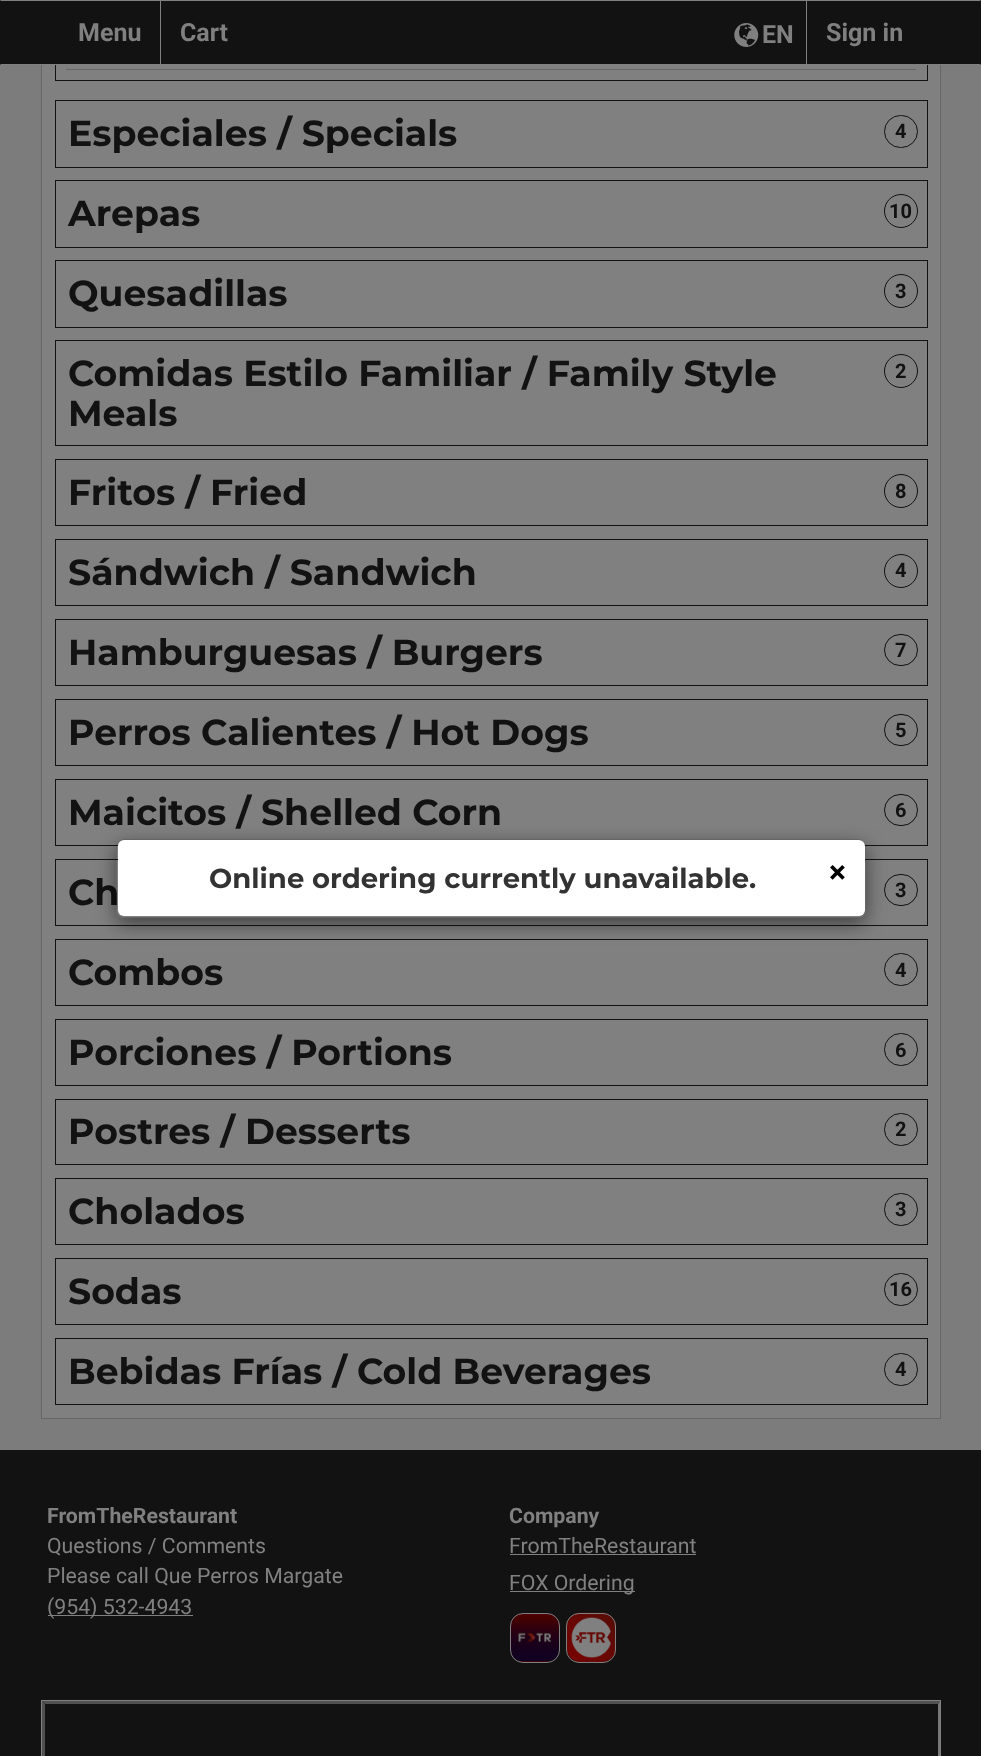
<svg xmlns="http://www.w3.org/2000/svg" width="981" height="1756">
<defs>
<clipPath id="clip1"><path d="M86 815h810v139h-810zm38 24h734c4.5 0 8 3.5 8 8v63c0 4.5-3.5 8-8 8h-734c-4.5 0-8-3.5-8-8v-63c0-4.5 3.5-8 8-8z" clip-rule="evenodd"/></clipPath>
</defs>
<rect width="100%" height="100%" fill="#7c7c7c"/>
<rect x="42" y="65" width="898" height="1353" fill="#808080"/>
<rect x="41.5" y="-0.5" width="899" height="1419" fill="none" stroke="#666"/>
<rect x="55.5" y="-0.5" width="872" height="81" fill="none" stroke="#121212"/>
<rect width="981" height="65" fill="#121212"/>
<path d="M0 0h981l-1 1h-979z" fill="#808080"/>
<path d="M981 65h-981l1-1h979z" fill="#808080"/>
<rect x="160" y="1" width="1" height="63" fill="#808080"/>
<text x="78" y="41" style="font-family:Roboto;font-size:25px;font-weight:bold;fill:#808080">Menu</text>
<text x="180" y="41" style="font-family:Roboto;font-size:25px;font-weight:bold;fill:#808080">Cart</text>
<image x="734" y="23" width="25" height="24" href="media/1.png"/>
<text x="762" y="43" style="font-family:Roboto;font-size:25px;font-weight:bold;fill:#808080">EN</text>
<rect x="806" y="1" width="1" height="63" fill="#808080"/>
<text x="826" y="41" style="font-family:Roboto;font-size:25px;font-weight:bold;fill:#808080">Sign in</text>
<rect x="66" y="69" width="850" height="1" fill="#666"/>
<rect x="55.5" y="100.5" width="872" height="67" fill="none" stroke="#121212"/>
<text x="68" y="146" style="font-family:Montserrat;font-size:36.25px;font-weight:bold;fill:#121212">Especiales / Specials</text>
<rect x="884.5" y="115.5" width="33" height="32" rx="16" fill="none" stroke="#121212"/>
<text x="895" y="138" style="font-family:Roboto;font-size:20px;font-weight:bold;fill:#121212">4</text>
<rect x="55.5" y="180.5" width="872" height="67" fill="none" stroke="#121212"/>
<text x="68" y="226" style="font-family:Montserrat;font-size:36.25px;font-weight:bold;fill:#121212">Arepas</text>
<circle cx="901" cy="211" r="16.5" fill="none" stroke="#121212"/>
<text x="889" y="218" style="font-family:Roboto;font-size:20px;font-weight:bold;fill:#121212">10</text>
<rect x="55.5" y="260.5" width="872" height="67" fill="none" stroke="#121212"/>
<text x="68" y="306" style="font-family:Montserrat;font-size:36.25px;font-weight:bold;fill:#121212">Quesadillas</text>
<circle cx="901" cy="291" r="16.5" fill="none" stroke="#121212"/>
<text x="895" y="298" style="font-family:Roboto;font-size:20px;font-weight:bold;fill:#121212">3</text>
<rect x="55.5" y="340.5" width="872" height="105" fill="none" stroke="#121212"/>
<text x="68" y="386" style="font-family:Montserrat;font-size:36.25px;font-weight:bold;fill:#121212">Comidas Estilo Familiar / Family Style</text>
<circle cx="901" cy="371" r="16.5" fill="none" stroke="#121212"/>
<text x="895" y="378" style="font-family:Roboto;font-size:20px;font-weight:bold;fill:#121212">2</text>
<text x="68" y="426" style="font-family:Montserrat;font-size:36.25px;font-weight:bold;fill:#121212">Meals</text>
<rect x="55.5" y="459.5" width="872" height="66" fill="none" stroke="#121212"/>
<text x="68" y="505" style="font-family:Montserrat;font-size:36.25px;font-weight:bold;fill:#121212">Fritos / Fried</text>
<circle cx="901" cy="491" r="16.5" fill="none" stroke="#121212"/>
<text x="895" y="498" style="font-family:Roboto;font-size:20px;font-weight:bold;fill:#121212">8</text>
<rect x="55.5" y="539.5" width="872" height="66" fill="none" stroke="#121212"/>
<text x="68" y="585" style="font-family:Montserrat;font-size:36.25px;font-weight:bold;fill:#121212">Sándwich / Sandwich</text>
<circle cx="901" cy="571" r="16.5" fill="none" stroke="#121212"/>
<text x="895" y="577" style="font-family:Roboto;font-size:20px;font-weight:bold;fill:#121212">4</text>
<rect x="55.5" y="619.5" width="872" height="66" fill="none" stroke="#121212"/>
<text x="68" y="665" style="font-family:Montserrat;font-size:36.25px;font-weight:bold;fill:#121212">Hamburguesas / Burgers</text>
<rect x="884.5" y="634.5" width="33" height="31" rx="15.5" fill="none" stroke="#121212"/>
<text x="895" y="657" style="font-family:Roboto;font-size:20px;font-weight:bold;fill:#121212">7</text>
<rect x="55.5" y="699.5" width="872" height="66" fill="none" stroke="#121212"/>
<text x="68" y="745" style="font-family:Montserrat;font-size:36.25px;font-weight:bold;fill:#121212">Perros Calientes / Hot Dogs</text>
<rect x="884.5" y="714.5" width="33" height="31" rx="15.5" fill="none" stroke="#121212"/>
<text x="895" y="737" style="font-family:Roboto;font-size:20px;font-weight:bold;fill:#121212">5</text>
<rect x="55.5" y="779.5" width="872" height="66" fill="none" stroke="#121212"/>
<text x="68" y="825" style="font-family:Montserrat;font-size:36.25px;font-weight:bold;fill:#121212">Maicitos / Shelled Corn</text>
<rect x="884.5" y="794.5" width="33" height="31" rx="15.5" fill="none" stroke="#121212"/>
<text x="895" y="817" style="font-family:Roboto;font-size:20px;font-weight:bold;fill:#121212">6</text>
<rect x="55.5" y="859.5" width="872" height="66" fill="none" stroke="#121212"/>
<text x="68" y="905" style="font-family:Montserrat;font-size:36.25px;font-weight:bold;fill:#121212">Ch</text>
<rect x="884.5" y="874.5" width="33" height="31" rx="15.5" fill="none" stroke="#121212"/>
<text x="895" y="897" style="font-family:Roboto;font-size:20px;font-weight:bold;fill:#121212">3</text>
<rect x="55.5" y="939.5" width="872" height="66" fill="none" stroke="#121212"/>
<text x="68" y="985" style="font-family:Montserrat;font-size:36.25px;font-weight:bold;fill:#121212">Combos</text>
<rect x="884.5" y="953.5" width="33" height="32" rx="16" fill="none" stroke="#121212"/>
<text x="895" y="977" style="font-family:Roboto;font-size:20px;font-weight:bold;fill:#121212">4</text>
<rect x="55.5" y="1019.5" width="872" height="66" fill="none" stroke="#121212"/>
<text x="68" y="1065" style="font-family:Montserrat;font-size:36.25px;font-weight:bold;fill:#121212">Porciones / Portions</text>
<rect x="884.5" y="1033.5" width="33" height="32" rx="16" fill="none" stroke="#121212"/>
<text x="895" y="1057" style="font-family:Roboto;font-size:20px;font-weight:bold;fill:#121212">6</text>
<rect x="55.5" y="1099.5" width="872" height="65" fill="none" stroke="#121212"/>
<text x="68" y="1144" style="font-family:Montserrat;font-size:36.25px;font-weight:bold;fill:#121212">Postres / Desserts</text>
<rect x="884.5" y="1113.5" width="33" height="32" rx="16" fill="none" stroke="#121212"/>
<text x="895" y="1136" style="font-family:Roboto;font-size:20px;font-weight:bold;fill:#121212">2</text>
<rect x="55.5" y="1178.5" width="872" height="66" fill="none" stroke="#121212"/>
<text x="68" y="1224" style="font-family:Montserrat;font-size:36.25px;font-weight:bold;fill:#121212">Cholados</text>
<rect x="884.5" y="1193.5" width="33" height="32" rx="16" fill="none" stroke="#121212"/>
<text x="895" y="1216" style="font-family:Roboto;font-size:20px;font-weight:bold;fill:#121212">3</text>
<rect x="55.5" y="1258.5" width="872" height="66" fill="none" stroke="#121212"/>
<text x="68" y="1304" style="font-family:Montserrat;font-size:36.25px;font-weight:bold;fill:#121212">Sodas</text>
<rect x="884.5" y="1273.5" width="33" height="32" rx="16" fill="none" stroke="#121212"/>
<text x="889" y="1296" style="font-family:Roboto;font-size:20px;font-weight:bold;fill:#121212">16</text>
<rect x="55.5" y="1338.5" width="872" height="66" fill="none" stroke="#121212"/>
<text x="68" y="1384" style="font-family:Montserrat;font-size:36.25px;font-weight:bold;fill:#121212">Bebidas Frías / Cold Beverages</text>
<rect x="884.5" y="1353.5" width="33" height="32" rx="16" fill="none" stroke="#121212"/>
<text x="895" y="1376" style="font-family:Roboto;font-size:20px;font-weight:bold;fill:#121212">4</text>
<g clip-path="url(#clip1)">
<rect x="116" y="845" width="750" height="79" rx="8" fill="#00000080" filter="blur(9.5px)"/>
</g>
<rect x="118" y="840" width="747" height="76" rx="6" fill="#fff"/>
<rect x="116.5" y="839.5" width="749" height="78" rx="7.5" fill="none" stroke="#00000033"/>
<text x="209" y="888" style="font-family:Montserrat;font-size:27.5px;font-weight:bold;fill:#333">Online ordering currently unavailable.</text>
<text x="829" y="883" style="font-family:Roboto;font-size:32px;font-weight:bold;fill:#000">×</text>
<rect y="1450" width="981" height="306" fill="#121212"/>
<text x="47" y="1523" style="font-family:Roboto;font-size:21.25px;font-weight:bold;fill:#808080">FromTheRestaurant</text>
<text x="47" y="1553" style="font-family:Roboto;font-size:21.25px;fill:#808080">Questions / Comments</text>
<text x="47" y="1583" style="font-family:Roboto;font-size:21.25px;fill:#808080">Please call Que Perros Margate</text>
<rect x="48" y="1615" width="145" height="1" fill="#808080"/>
<text x="47" y="1614" style="font-family:Roboto;font-size:21.25px;fill:#808080">(954) 532-4943</text>
<text x="509" y="1523" style="font-family:Roboto;font-size:21.25px;font-weight:bold;fill:#808080">Company</text>
<text x="509" y="1553" style="font-family:Roboto;font-size:21.25px;fill:#808080">FromTheRestaurant</text>
<rect x="510" y="1554" width="186" height="1" fill="#808080"/>
<rect x="510" y="1591" width="125" height="1" fill="#808080"/>
<text x="509" y="1590" style="font-family:Roboto;font-size:21.25px;fill:#808080">FOX Ordering</text>
<image x="510" y="1612" width="50" height="51" href="media/2.png"/>
<rect x="510.5" y="1613.5" width="49" height="49" rx="12.5" fill="none" stroke="#808080"/>
<image x="566" y="1612" width="51" height="51" href="media/3.png"/>
<rect x="566.5" y="1613.5" width="49" height="49" rx="12.5" fill="none" stroke="#808080"/>
<rect x="41.5" y="1700.5" width="899" height="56" fill="none" stroke="#808080"/>
<path d="M42 1701h898l-2 3h-893z" fill="#505050"/>
<path d="M42 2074v-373l3 3v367z" fill="#505050"/>
<path d="M940 1701v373l-2-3v-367z" fill="#777"/>
</svg>
